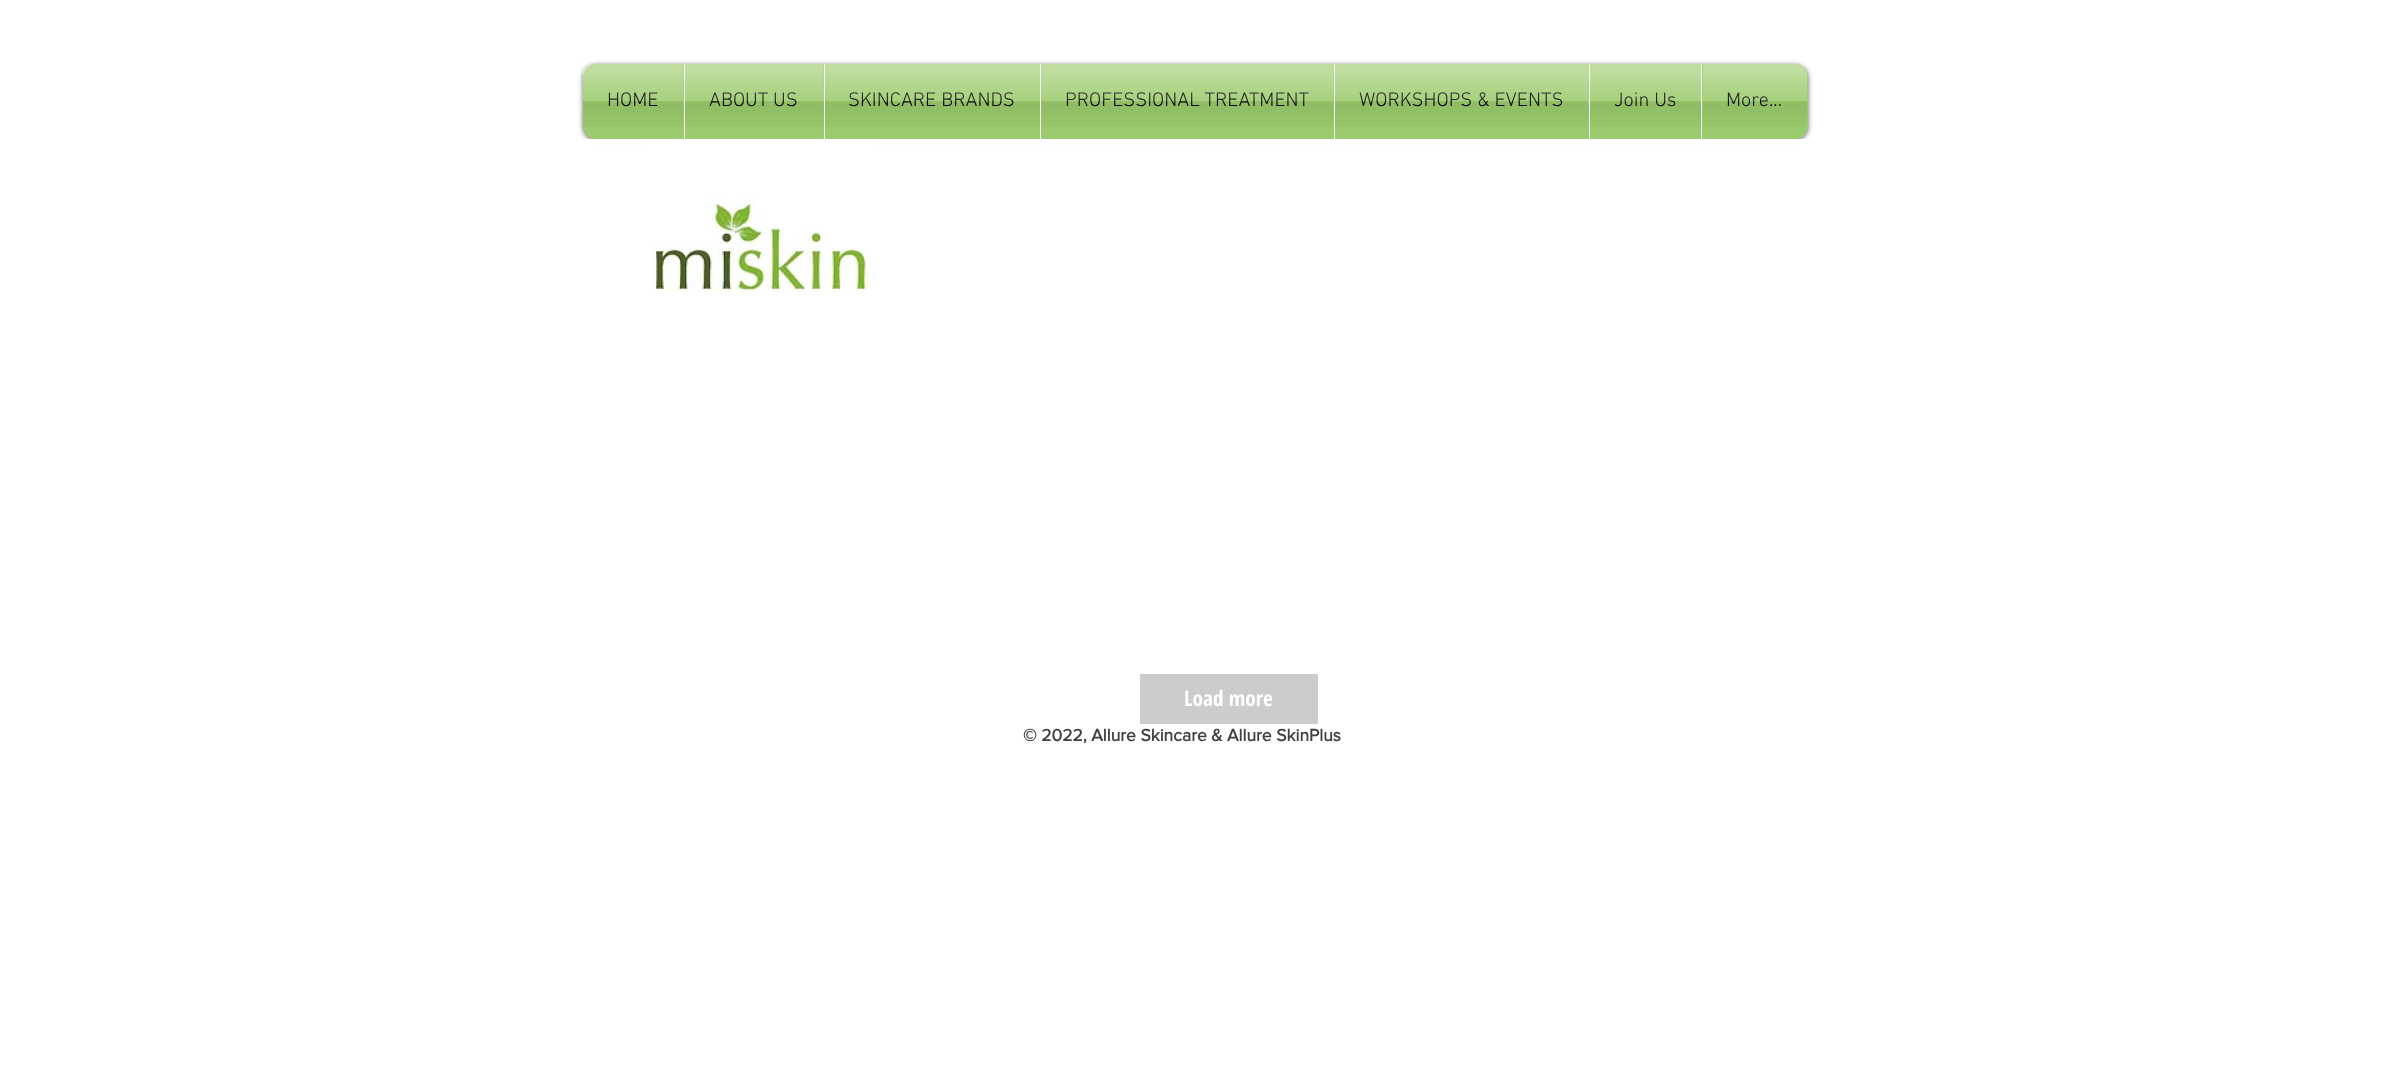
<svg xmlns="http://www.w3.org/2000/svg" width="2388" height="1084">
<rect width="100%" height="100%" fill="#fff"/>
<rect x="583" y="65" width="1225" height="75" rx="13" fill="#00000099" filter="blur(2.5px)"/>
<image x="583" y="64" width="1225" height="63" href="media/1.png"/>
<path d="M596 64h88v75h-88c-7 0-13-6-13-13v-49c0-7 6-13 13-13z" fill="#9bcb6c"/>
<text x="607" y="106" style="font-family:'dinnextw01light';font-size:20px;font-weight:300;fill:#000">HOME</text>
<image x="583" y="64" width="101" height="63" href="media/2.png"/>
<rect x="685" y="64" width="139" height="75" fill="#9bcb6c"/>
<rect x="684" y="64" width="1" height="75" fill="#fff"/>
<text x="709" y="106" style="font-family:'dinnextw01light';font-size:20px;font-weight:300;fill:#000">ABOUT US</text>
<image x="685" y="64" width="139" height="63" href="media/3.png"/>
<rect x="825" y="64" width="215" height="75" fill="#9bcb6c"/>
<rect x="824" y="64" width="1" height="75" fill="#fff"/>
<text x="848" y="106" style="font-family:'dinnextw01light';font-size:20px;font-weight:300;fill:#000">SKINCARE BRANDS</text>
<image x="825" y="64" width="215" height="63" href="media/4.png"/>
<rect x="1041" y="64" width="293" height="75" fill="#9bcb6c"/>
<rect x="1040" y="64" width="1" height="75" fill="#fff"/>
<text x="1065" y="106" style="font-family:'dinnextw01light';font-size:20px;font-weight:300;fill:#000">PROFESSIONAL TREATMENT</text>
<image x="1041" y="64" width="293" height="63" href="media/5.png"/>
<rect x="1335" y="64" width="254" height="75" fill="#9bcb6c"/>
<rect x="1334" y="64" width="1" height="75" fill="#fff"/>
<text x="1359" y="106" style="font-family:'dinnextw01light';font-size:20px;font-weight:300;fill:#000">WORKSHOPS &amp; EVENTS</text>
<image x="1335" y="64" width="254" height="63" href="media/6.png"/>
<rect x="1590" y="64" width="111" height="75" fill="#9bcb6c"/>
<rect x="1589" y="64" width="1" height="75" fill="#fff"/>
<text x="1614" y="106" style="font-family:'dinnextw01light';font-size:20px;font-weight:300;fill:#000">Join Us</text>
<image x="1590" y="64" width="111" height="63" href="media/7.png"/>
<path d="M1701 64h94c7 0 13 6 13 13v49c0 7-6 13-13 13h-94z" fill="#9bcb6c"/>
<rect x="1701" y="64" width="1" height="75" fill="#fff"/>
<text x="1726" y="106" style="font-family:'dinnextw01light';font-size:20px;font-weight:300;fill:#000">More...</text>
<image x="1702" y="64" width="106" height="63" href="media/8.png"/>
<rect x="583" y="139" width="1225" height="6" fill="#fff"/>
<image x="644" y="138" width="232" height="156" href="media/9.png"/>
<rect x="1140" y="674" width="178" height="50" fill="#ccc"/>
<text x="1184" y="706" style="font-family:Open Sans Condensed;font-size:21.25px;font-weight:bold;fill:#fff">Load more</text>
<text x="1023" y="741" style="font-family:'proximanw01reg';font-size:17.5px;font-weight:bold;fill:#414141">© 2022, Allure Skincare &amp; Allure SkinPlus</text>
</svg>
